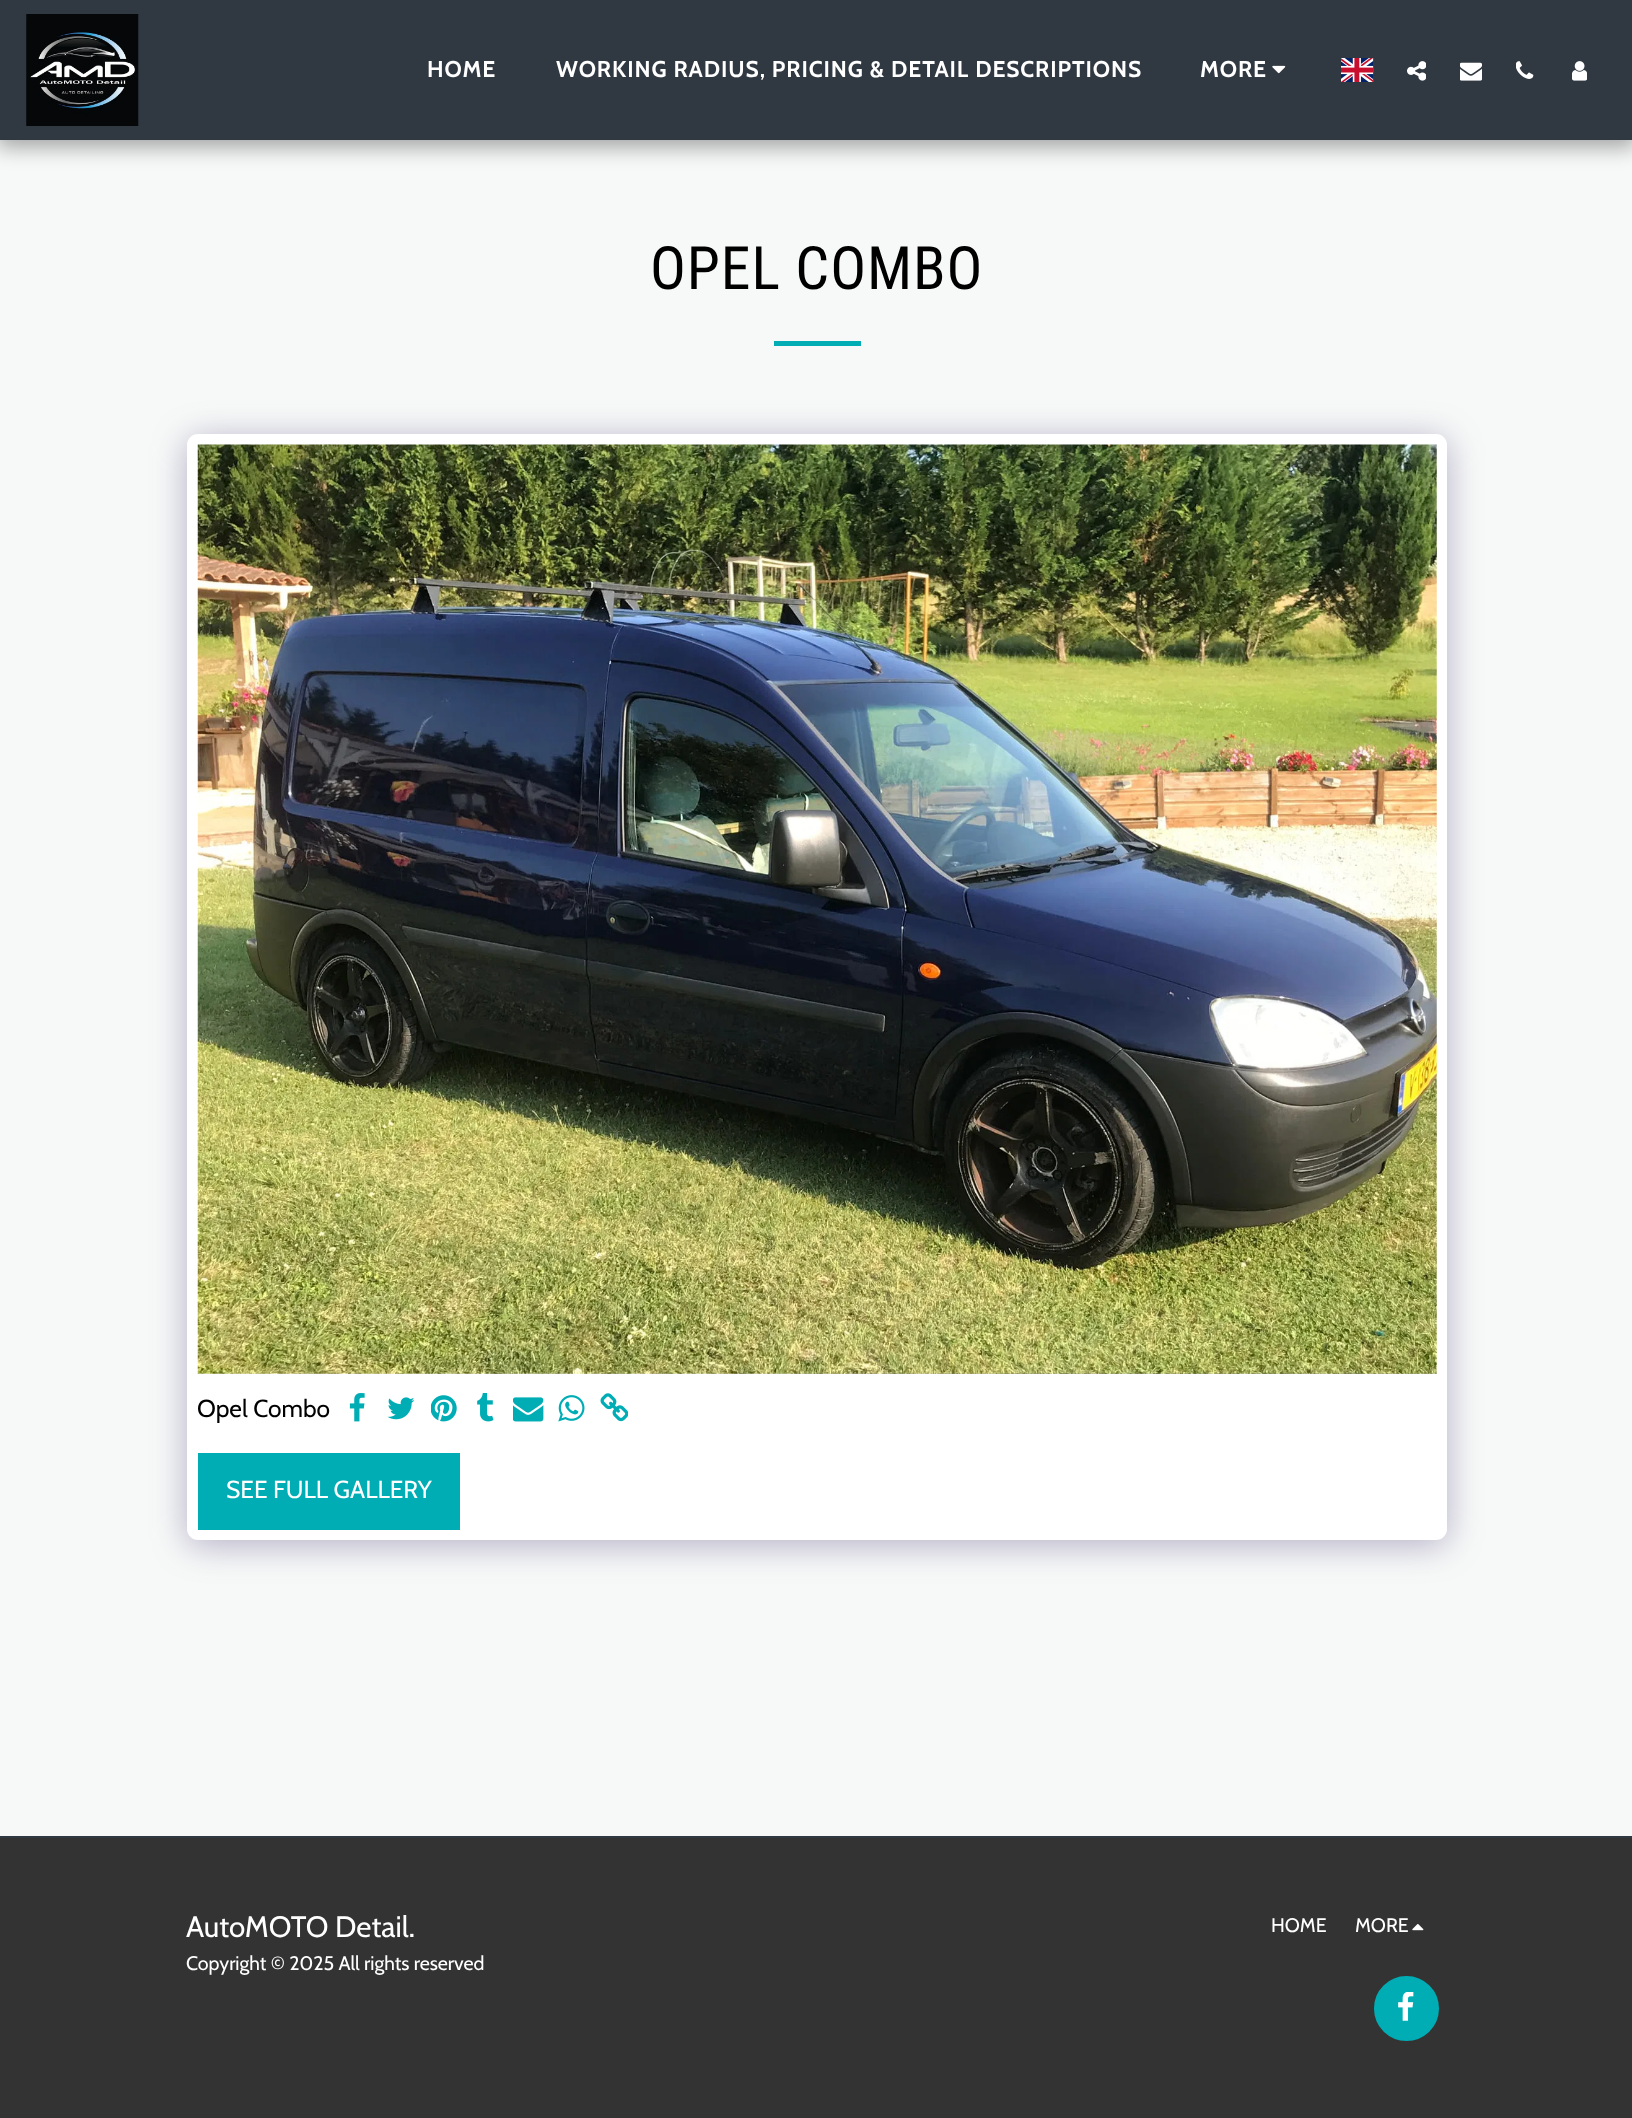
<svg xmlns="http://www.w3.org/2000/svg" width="1632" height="2118">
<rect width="100%" height="100%" fill="#f7f9f8"/>
<rect x="-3" width="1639" height="147" fill="#00000059" filter="blur(10.5px)"/>
<rect width="1632" height="140" fill="#303841"/>
<image x="26" y="14" width="113" height="112" href="media/1.png"/>
<text x="427" y="77" style="font-family:Cabin;font-size:22.75px;font-weight:bold;letter-spacing:0.9px;fill:#fff">HOME</text>
<text x="556" y="77" style="font-family:Cabin;font-size:22.75px;font-weight:bold;letter-spacing:0.9px;fill:#fff">WORKING RADIUS, PRICING &amp; DETAIL DESCRIPTIONS</text>
<text x="1200" y="77" style="font-family:Cabin;font-size:22.75px;font-weight:bold;letter-spacing:0.9px;fill:#fff">MORE</text>
<image x="1272" y="65" width="14" height="9" href="media/2.png"/>
<image x="1341" y="58" width="33" height="24" href="media/3.png"/>
<image x="1407" y="61" width="19" height="20" href="media/4.png"/>
<image x="1460" y="62" width="22" height="19" href="media/5.png"/>
<image x="1516" y="61" width="18" height="18" href="media/6.png"/>
<image x="1572" y="61" width="15" height="20" href="media/7.png"/>
<text x="650" y="289" style="font-family:Roboto Condensed;font-size:59.75px;letter-spacing:0.9px;fill:#000">OPEL COMBO</text>
<rect x="774" y="341" width="87" height="5" fill="#00adb5"/>
<rect x="187" y="439" width="1260" height="1106" rx="11" fill="#4d3f7a66" filter="blur(17.5px)"/>
<rect x="187" y="434" width="1260" height="1106" rx="11" fill="#fff"/>
<image x="197" y="444" width="1240" height="930" href="media/8.png"/>
<text x="197" y="1417" style="font-family:Cabin;font-size:24.5px;fill:#000">Opel Combo</text>
<image x="349" y="1393" width="16" height="29" href="media/9.png"/>
<image x="387" y="1397" width="28" height="23" href="media/10.png"/>
<image x="431" y="1395" width="26" height="27" href="media/11.png"/>
<image x="477" y="1393" width="17" height="29" href="media/12.png"/>
<image x="513" y="1397" width="31" height="25" href="media/13.png"/>
<image x="558" y="1395" width="27" height="27" href="media/14.png"/>
<image x="600" y="1393" width="28" height="29" href="media/15.png"/>
<rect x="198" y="1453" width="262" height="77" fill="#00adb5"/>
<text x="226" y="1498" style="font-family:Cabin;font-size:24.5px;fill:#fff">SEE FULL GALLERY</text>
<rect y="1838" width="1632" height="280" fill="#333"/>
<rect y="1836" width="1632" height="2" fill="#303841"/>
<text x="186" y="1937" style="font-family:Cabin;font-size:29.5px;fill:#fff">AutoMOTO Detail.</text>
<text x="186" y="1970" style="font-family:Cabin;font-size:19.6px;fill:#fff">Copyright © 2025 All rights reserved</text>
<text x="1271" y="1932" style="font-family:Cabin;font-size:19.6px;fill:#fff">HOME</text>
<text x="1355" y="1932" style="font-family:Cabin;font-size:19.6px;fill:#fff">MORE</text>
<image x="1412" y="1924" width="12" height="7" href="media/16.png"/>
<circle cx="1406.5" cy="2008.5" r="31.5" fill="#00adb5" stroke="#00adb5" stroke-width="2"/>
<image x="1398" y="1992" width="16" height="29" href="media/17.png"/>
</svg>
